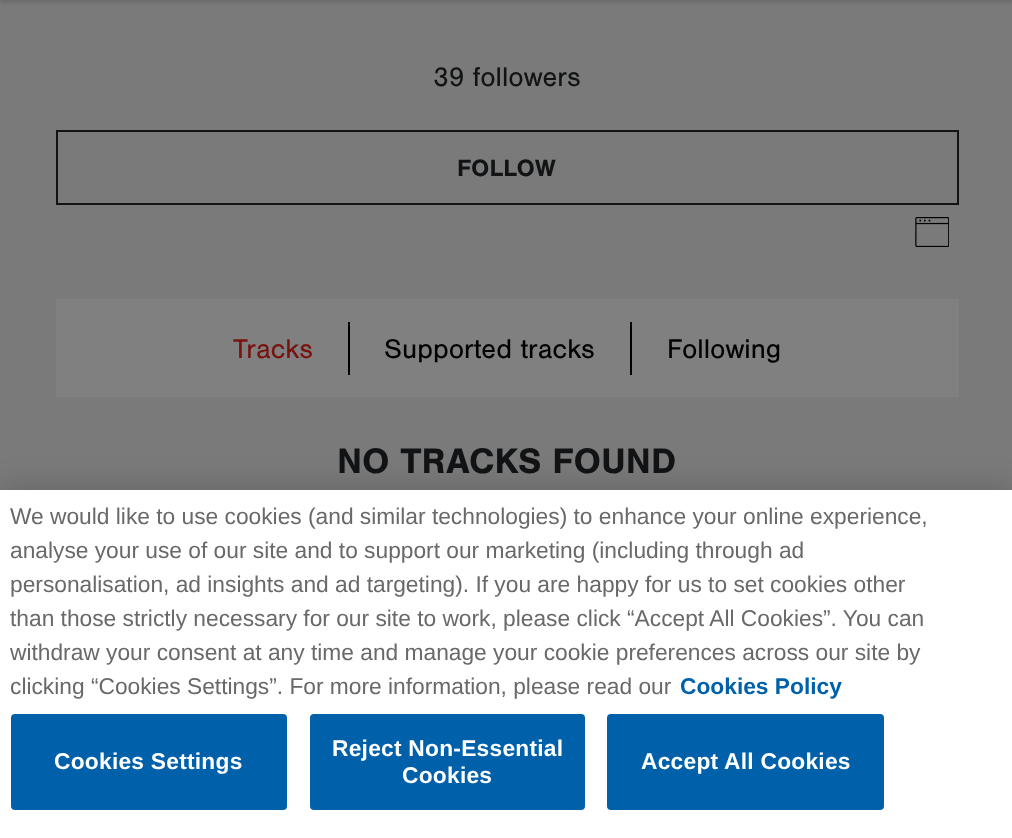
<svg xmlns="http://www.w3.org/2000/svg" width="1012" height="838">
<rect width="100%" height="100%" fill="#7a7a7a"/>
<rect y="-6" width="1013" height="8" fill="#00000026" filter="blur(2px)"/>
<text x="433" y="86" style="font-family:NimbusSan;font-size:28px;fill:#111315">39 followers</text>
<rect x="57" y="131" width="901" height="73" fill="none" stroke="#111315" stroke-width="2"/>
<text x="457" y="176" style="font-family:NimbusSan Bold;font-size:24.5px;font-weight:bold;fill:#111315">FOLLOW</text>
<image x="915" y="217" width="34" height="30" href="media/1.png"/>
<rect x="56" y="299" width="903" height="98" fill="#808080"/>
<rect x="348" y="322" width="2" height="53" fill="#000"/>
<text x="233" y="358" style="font-family:NimbusSan;font-size:28px;fill:#78120e">Tracks</text>
<rect x="630" y="322" width="2" height="53" fill="#000"/>
<text x="384" y="358" style="font-family:NimbusSan;font-size:28px;fill:#000">Supported tracks</text>
<text x="667" y="358" style="font-family:NimbusSan;font-size:28px;fill:#000">Following</text>
<text x="337" y="473" style="font-family:NimbusSan Bold;font-size:36.75px;font-weight:bold;fill:#111315">NO TRACKS FOUND</text>
<rect y="490" width="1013" height="348" fill="#00000033" filter="blur(16px)"/>
<rect y="490" width="1012" height="348" fill="#fff"/>
<text x="10" y="524" style="font-family:Liberation Sans;font-size:22.75px;fill:#696969">We would like to use cookies (and similar technologies) to enhance your online experience,</text>
<text x="10" y="558" style="font-family:Liberation Sans;font-size:22.75px;fill:#696969">analyse your use of our site and to support our marketing (including through ad</text>
<text x="10" y="592" style="font-family:Liberation Sans;font-size:22.75px;fill:#696969">personalisation, ad insights and ad targeting). If you are happy for us to set cookies other</text>
<text x="10" y="626" style="font-family:Liberation Sans;font-size:22.75px;fill:#696969">than those strictly necessary for our site to work, please click “Accept All Cookies”. You can</text>
<text x="10" y="660" style="font-family:Liberation Sans;font-size:22.75px;fill:#696969">withdraw your consent at any time and manage your cookie preferences across our site by</text>
<text x="10" y="694" style="font-family:Liberation Sans;font-size:22.75px;fill:#696969">clicking “Cookies Settings”. For more information, please read our</text>
<text x="680" y="694" style="font-family:Liberation Sans;font-size:22.75px;font-weight:bold;fill:#0061aa">Cookies Policy</text>
<rect x="11" y="714" width="276" height="96" rx="4" fill="#0061aa"/>
<text x="54" y="769" style="font-family:Liberation Sans;font-size:22.75px;font-weight:bold;letter-spacing:0.25px;fill:#fff">Cookies Settings</text>
<rect x="310" y="714" width="275" height="96" rx="4" fill="#0061aa"/>
<text x="332" y="756" style="font-family:Liberation Sans;font-size:22.75px;font-weight:bold;letter-spacing:0.25px;fill:#fff">Reject Non-Essential</text>
<text x="402" y="783" style="font-family:Liberation Sans;font-size:22.75px;font-weight:bold;letter-spacing:0.25px;fill:#fff">Cookies</text>
<rect x="607" y="714" width="277" height="96" rx="4" fill="#0061aa"/>
<text x="641" y="769" style="font-family:Liberation Sans;font-size:22.75px;font-weight:bold;letter-spacing:0.25px;fill:#fff">Accept All Cookies</text>
</svg>
